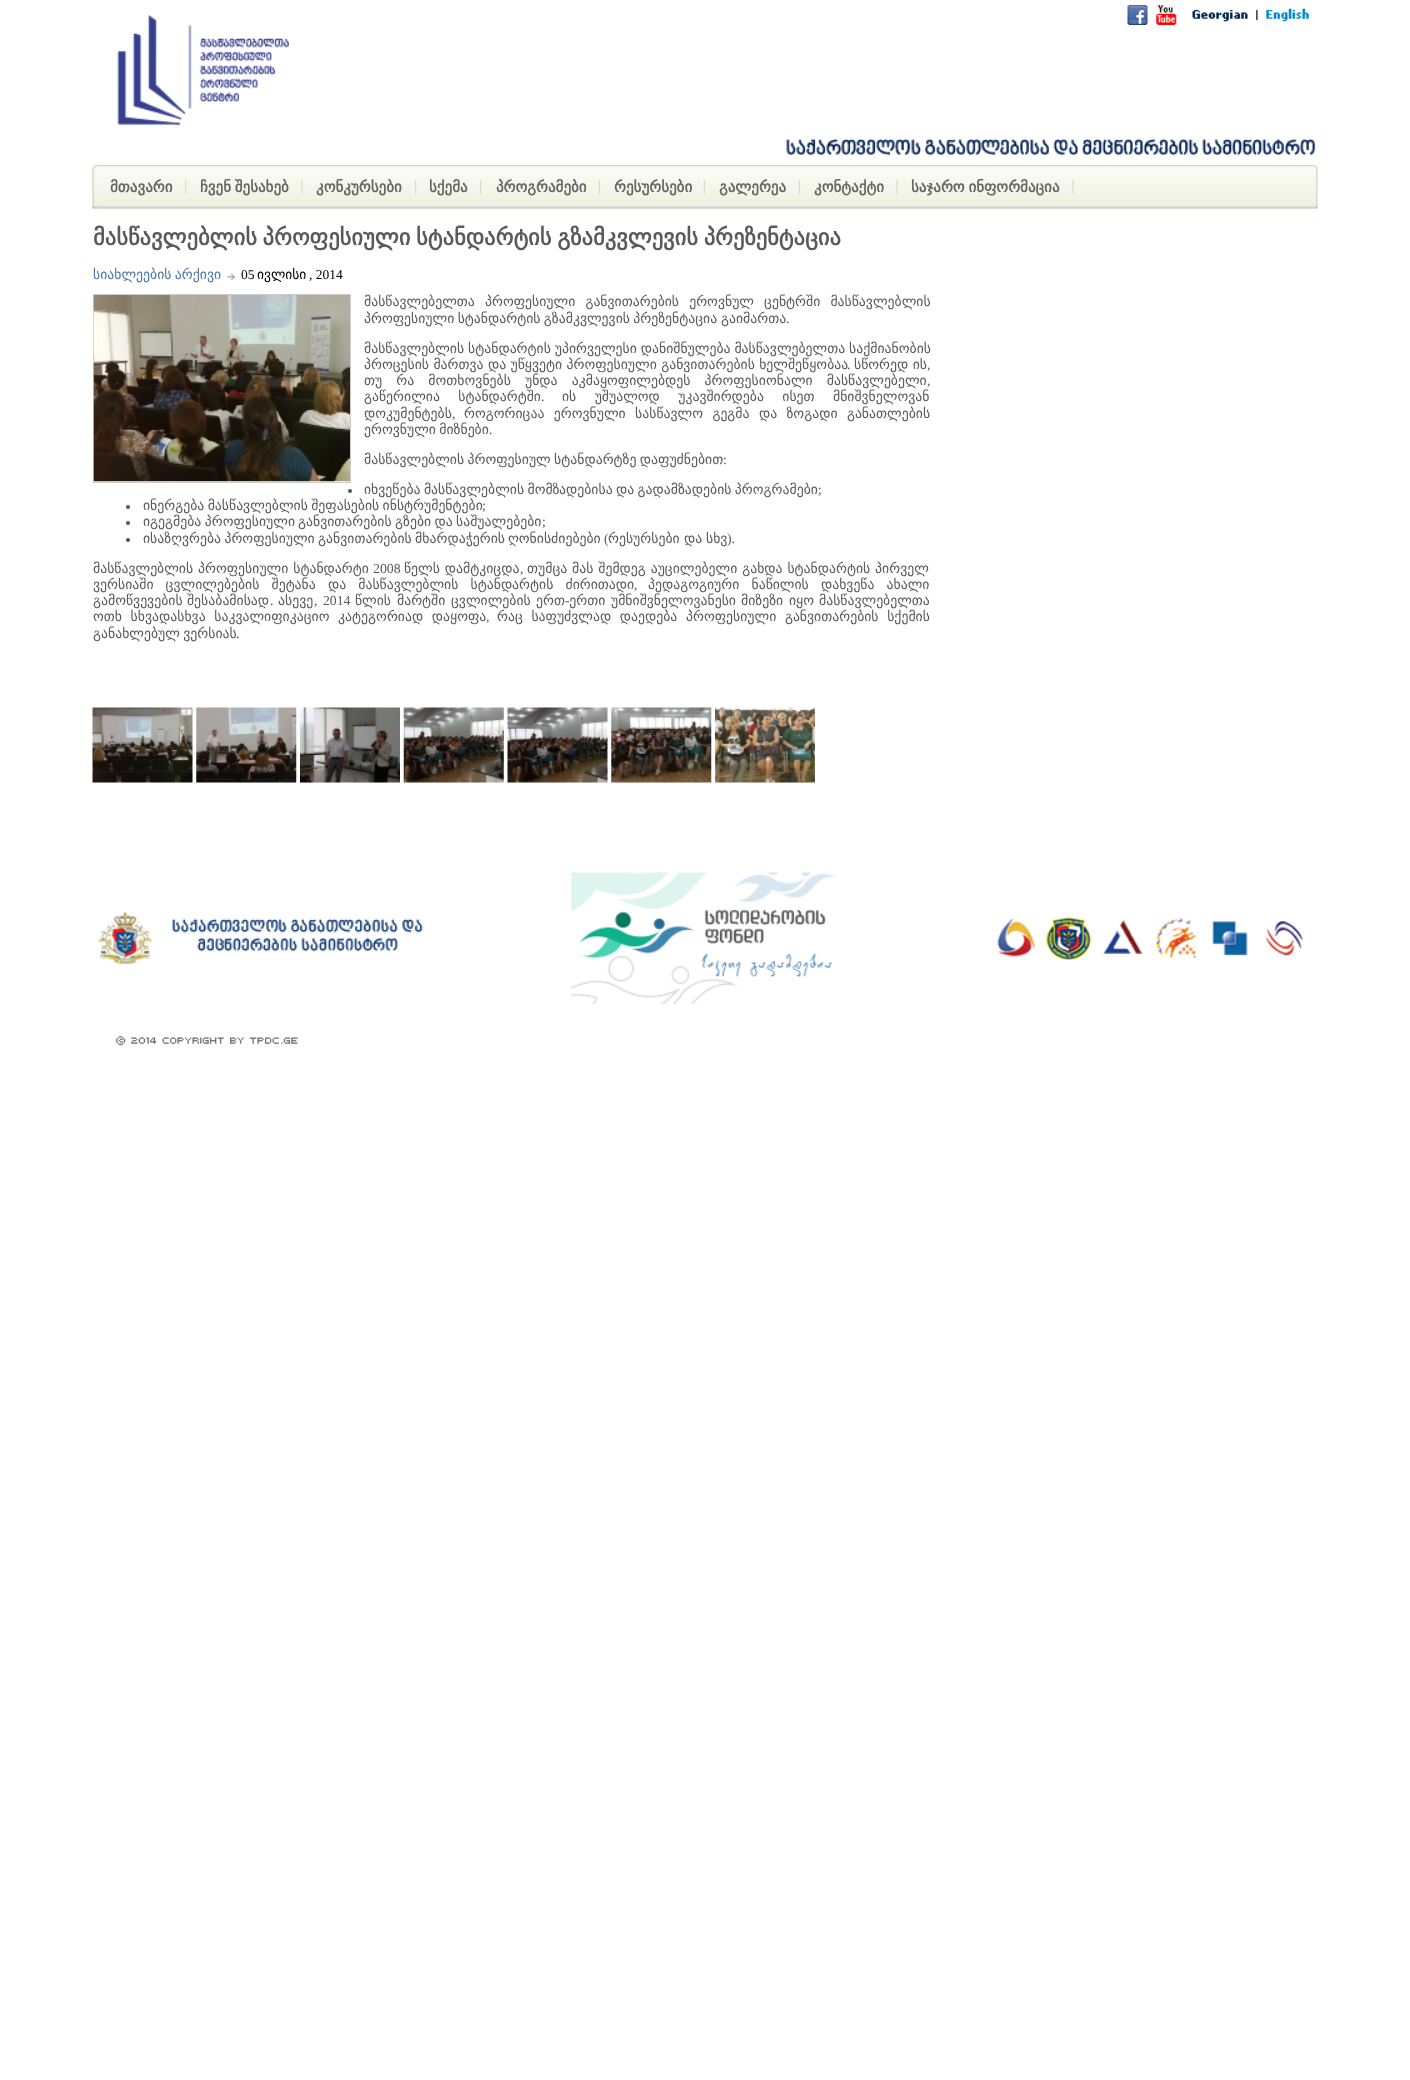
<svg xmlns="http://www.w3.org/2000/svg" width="1410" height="2080">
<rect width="100%" height="100%" fill="#fff"/>
<image x="117" y="15" width="172" height="110" href="media/1.png"/>
<image x="1127" y="5" width="21" height="20" href="media/2.png"/>
<image x="1156" y="5" width="21" height="20" href="media/3.png"/>
<image x="1192" y="9" width="56" height="13" href="media/4.png"/>
<image x="1256" y="9" width="2" height="12" href="media/5.png"/>
<image x="1266" y="8" width="43" height="14" href="media/6.png"/>
<image x="786" y="138" width="530" height="18" href="media/7.png"/>
<image x="96" y="165" width="1218" height="44" href="media/9.png"/>
<image x="92" y="165" width="5" height="44" href="media/8.png"/>
<image x="185" y="180" width="2" height="14" href="media/10.png"/>
<text x="110" y="192" style="font-family:DejaVu Sans;font-size:15px;font-weight:bold;fill:#666">მთავარი</text>
<image x="301" y="180" width="2" height="14" href="media/11.png"/>
<text x="200" y="192" word-spacing="-1" style="font-family:DejaVu Sans;font-size:15px;font-weight:bold;fill:#666">ჩვენ შესახებ</text>
<image x="415" y="180" width="2" height="14" href="media/10.png"/>
<text x="316" y="192" style="font-family:DejaVu Sans;font-size:15px;font-weight:bold;fill:#666">კონკურსები</text>
<image x="480" y="180" width="2" height="14" href="media/10.png"/>
<text x="429" y="192" style="font-family:DejaVu Sans;font-size:15px;font-weight:bold;fill:#666">სქემა</text>
<image x="598" y="180" width="2" height="14" href="media/12.png"/>
<text x="496" y="192" style="font-family:DejaVu Sans;font-size:15px;font-weight:bold;fill:#666">პროგრამები</text>
<image x="703" y="180" width="2" height="14" href="media/12.png"/>
<text x="614" y="192" style="font-family:DejaVu Sans;font-size:15px;font-weight:bold;fill:#666">რესურსები</text>
<image x="798" y="180" width="2" height="14" href="media/12.png"/>
<text x="719" y="192" style="font-family:DejaVu Sans;font-size:15px;font-weight:bold;fill:#666">გალერეა</text>
<image x="896" y="180" width="2" height="14" href="media/11.png"/>
<text x="814" y="192" style="font-family:DejaVu Sans;font-size:15px;font-weight:bold;fill:#666">კონტაქტი</text>
<image x="1072" y="180" width="2" height="14" href="media/13.png"/>
<text x="911" y="192" word-spacing="-1" style="font-family:DejaVu Sans;font-size:15px;font-weight:bold;fill:#666">საჯარო ინფორმაცია</text>
<image x="1313" y="165" width="5" height="44" href="media/14.png"/>
<text x="93" y="245" word-spacing="-1.5" style="font-family:DejaVu Sans;font-size:22.5px;font-weight:bold;fill:#5a5a5a">მასწავლებლის პროფესიული სტანდარტის გზამკვლევის პრეზენტაცია</text>
<text x="93" y="279" word-spacing="-1" style="font-family:DejaVu Sans;font-size:13.75px;fill:#4d75a8">სიახლეების არქივი</text>
<image x="227" y="273" width="9" height="7" href="media/15.png"/>
<text x="241" y="279" style="font-family:Liberation Serif;font-size:13.5px;fill:#000">05</text>
<text x="257" y="279" style="font-family:DejaVu Sans;font-size:13.5px;fill:#000">ივლისი</text>
<text x="309" y="279" style="font-family:Liberation Serif;font-size:13.5px;fill:#000">, 2014</text>
<rect x="93.5" y="294.5" width="257" height="188" fill="none" stroke="#ccc"/>
<image x="93" y="295" width="257" height="187" href="media/16.png"/>
<text x="364" y="306" word-spacing="5.75" style="font-family:DejaVu Sans;font-size:13.75px;fill:#5a5a5a">მასწავლებელთა პროფესიული განვითარების ეროვნულ ცენტრში მასწავლებლის</text>
<text x="364" y="323" word-spacing="-1" style="font-family:DejaVu Sans;font-size:13.75px;fill:#5a5a5a">პროფესიული სტანდარტის გზამკვლევის პრეზენტაცია</text>
<text x="721" y="323" style="font-family:DejaVu Sans;font-size:13.75px;fill:#5a5a5a">გაიმართა</text>
<text x="786" y="323" style="font-family:Liberation Serif;font-size:13.75px;fill:#5a5a5a">.</text>
<text x="364" y="353" word-spacing="-0.5" style="font-family:DejaVu Sans;font-size:13.75px;fill:#5a5a5a">მასწავლებლის სტანდარტის უპირველესი დანიშნულება მასწავლებელთა საქმიანობის</text>
<text x="364" y="369" style="font-family:DejaVu Sans;font-size:13.75px;fill:#5a5a5a">პროცესის მართვა და უწყვეტი პროფესიული განვითარების ხელშეწყობაა</text>
<text x="847" y="369" style="font-family:Liberation Serif;font-size:13.75px;fill:#5a5a5a">.</text>
<text x="854" y="369" style="font-family:DejaVu Sans;font-size:13.75px;fill:#5a5a5a">სწორედ ის</text>
<text x="927" y="369" style="font-family:Liberation Serif;font-size:13.75px;fill:#5a5a5a">,</text>
<text x="364" y="385" word-spacing="9.75" style="font-family:DejaVu Sans;font-size:13.75px;fill:#5a5a5a">თუ რა მოთხოვნებს უნდა აკმაყოფილებდეს პროფესიონალი მასწავლებელი</text>
<text x="927" y="385" style="font-family:Liberation Serif;font-size:13.75px;fill:#5a5a5a">,</text>
<text x="364" y="401" word-spacing="14" style="font-family:DejaVu Sans;font-size:13.75px;fill:#5a5a5a">გაწერილია სტანდარტში</text>
<text x="541" y="401" style="font-family:Liberation Serif;font-size:13.75px;fill:#5a5a5a">.</text>
<text x="562" y="401" word-spacing="14" style="font-family:DejaVu Sans;font-size:13.75px;fill:#5a5a5a">ის უშუალოდ უკავშირდება ისეთ მნიშვნელოვან</text>
<text x="364" y="418" style="font-family:DejaVu Sans;font-size:13.75px;fill:#5a5a5a">დოკუმენტებს</text>
<text x="452" y="418" style="font-family:Liberation Serif;font-size:13.75px;fill:#5a5a5a">,</text>
<text x="464" y="418" word-spacing="5" style="font-family:DejaVu Sans;font-size:13.75px;fill:#5a5a5a">როგორიცაა ეროვნული სასწავლო გეგმა და ზოგადი განათლების</text>
<text x="364" y="434" word-spacing="-1" style="font-family:DejaVu Sans;font-size:13.75px;fill:#5a5a5a">ეროვნული მიზნები</text>
<text x="489" y="434" style="font-family:Liberation Serif;font-size:13.75px;fill:#5a5a5a">.</text>
<text x="364" y="464" word-spacing="-1" style="font-family:DejaVu Sans;font-size:13.75px;fill:#5a5a5a">მასწავლებლის პროფესიულ სტანდარტზე დაფუძნებით</text>
<text x="723" y="464" style="font-family:Liberation Serif;font-size:13.75px;fill:#5a5a5a">:</text>
<circle cx="350" cy="491" r="2" fill="#565656"/>
<text x="364" y="494" word-spacing="-1" style="font-family:DejaVu Sans;font-size:13.75px;fill:#5a5a5a">იხვეწება მასწავლებლის მომზ</text>
<text x="559" y="494" style="font-family:DejaVu Sans;font-size:13.75px;fill:#5a5a5a">ადებისა</text>
<text x="616" y="494" word-spacing="-1" style="font-family:DejaVu Sans;font-size:13.75px;fill:#5a5a5a">და გადამზადების პროგრამები</text>
<text x="818" y="494" style="font-family:Liberation Serif;font-size:13.75px;fill:#5a5a5a">;</text>
<circle cx="128" cy="507" r="2" fill="#565656"/>
<text x="143" y="510" word-spacing="-1" style="font-family:DejaVu Sans;font-size:13.75px;fill:#5a5a5a">ინერგება მასწავლებლის შეფასების ინსტრუმენტები</text>
<text x="482" y="510" style="font-family:Liberation Serif;font-size:13.75px;fill:#5a5a5a">;</text>
<circle cx="128" cy="523" r="2" fill="#565656"/>
<text x="143" y="526" word-spacing="-1" style="font-family:DejaVu Sans;font-size:13.75px;fill:#5a5a5a">იგეგმება პროფესიული</text>
<text x="298" y="526" word-spacing="-1" style="font-family:DejaVu Sans;font-size:13.75px;fill:#5a5a5a">განვითარების გზები და საშუალებები</text>
<text x="542" y="526" style="font-family:Liberation Serif;font-size:13.75px;fill:#5a5a5a">;</text>
<circle cx="128" cy="540" r="2" fill="#565656"/>
<text x="143" y="543" word-spacing="-1" style="font-family:DejaVu Sans;font-size:13.75px;fill:#5a5a5a">ისაზღვრება პროფესიული განვითარების მხარდაჭერის</text>
<text x="508" y="543" style="font-family:DejaVu Sans;font-size:13.75px;fill:#5a5a5a">ღონისძიებები</text>
<text x="604" y="543" style="font-family:Liberation Serif;font-size:13.75px;fill:#5a5a5a">(</text>
<text x="608" y="543" style="font-family:DejaVu Sans;font-size:13.75px;fill:#5a5a5a">რესურსები და</text>
<text x="706" y="543" style="font-family:DejaVu Sans;font-size:13.75px;fill:#5a5a5a">სხვ</text>
<text x="727" y="543" style="font-family:Liberation Serif;font-size:13.75px;fill:#5a5a5a">).</text>
<text x="93" y="573" word-spacing="0.5" style="font-family:DejaVu Sans;font-size:13.75px;fill:#5a5a5a">მასწავლებლის პროფესიული სტანდარტი</text>
<text x="373" y="573" style="font-family:Liberation Serif;font-size:13.75px;fill:#5a5a5a">2008</text>
<text x="404" y="573" word-spacing="0.5" style="font-family:DejaVu Sans;font-size:13.75px;fill:#5a5a5a">წელს დამტკიცდა</text>
<text x="520" y="573" style="font-family:Liberation Serif;font-size:13.75px;fill:#5a5a5a">,</text>
<text x="527" y="573" word-spacing="0.5" style="font-family:DejaVu Sans;font-size:13.75px;fill:#5a5a5a">თუმცა მას შემდეგ აუცილებელი გახდა სტანდარტის პირველ</text>
<text x="93" y="589" word-spacing="7.75" style="font-family:DejaVu Sans;font-size:13.75px;fill:#5a5a5a">ვერსიაში ცვლილებების შეტანა და მასწავლებლის სტანდარტის ძირითადი</text>
<text x="634" y="589" style="font-family:Liberation Serif;font-size:13.75px;fill:#5a5a5a">,</text>
<text x="648" y="589" word-spacing="7.75" style="font-family:DejaVu Sans;font-size:13.75px;fill:#5a5a5a">პედაგოგიური ნაწილის დახვეწა ახალი</text>
<text x="93" y="605" style="font-family:DejaVu Sans;font-size:13.75px;fill:#5a5a5a">გამოწვევების</text>
<text x="187" y="605" style="font-family:DejaVu Sans;font-size:13.75px;fill:#5a5a5a">შესაბამისად</text>
<text x="278" y="605" style="font-family:DejaVu Sans;font-size:13.75px;fill:#5a5a5a">ასევე</text>
<text x="314" y="605" word-spacing="2" style="font-family:Liberation Serif;font-size:13.75px;fill:#5a5a5a">, 2014</text>
<text x="355" y="605" style="font-family:DejaVu Sans;font-size:13.75px;fill:#5a5a5a">წლის</text>
<text x="397" y="605" style="font-family:DejaVu Sans;font-size:13.75px;fill:#5a5a5a">მარტში</text>
<text x="451" y="605" style="font-family:DejaVu Sans;font-size:13.75px;fill:#5a5a5a">ცვლილების</text>
<text x="536" y="605" style="font-family:DejaVu Sans;font-size:13.75px;fill:#5a5a5a">ერთ ერთი</text>
<text x="611" y="605" style="font-family:DejaVu Sans;font-size:13.75px;fill:#5a5a5a">უმნიშვნელოვანესი</text>
<text x="741" y="605" style="font-family:DejaVu Sans;font-size:13.75px;fill:#5a5a5a">მიზეზი</text>
<text x="789" y="605" style="font-family:DejaVu Sans;font-size:13.75px;fill:#5a5a5a">იყო</text>
<text x="819" y="605" style="font-family:DejaVu Sans;font-size:13.75px;fill:#5a5a5a">მასწავლებელთა</text>
<text x="565" y="605" style="font-family:Liberation Serif;font-size:13.75px;fill:#5a5a5a">-</text>
<text x="270" y="605" style="font-family:Liberation Serif;font-size:13.75px;fill:#5a5a5a">.</text>
<text x="93" y="621" word-spacing="4.25" style="font-family:DejaVu Sans;font-size:13.75px;fill:#5a5a5a">ოთხ სხვადასხვა საკვალიფიკაციო კატეგორიად დაყოფა</text>
<text x="486" y="621" style="font-family:Liberation Serif;font-size:13.75px;fill:#5a5a5a">,</text>
<text x="497" y="621" word-spacing="4.25" style="font-family:DejaVu Sans;font-size:13.75px;fill:#5a5a5a">რაც საფუძვლად დაედება პროფესიული განვითარების სქემის</text>
<text x="93" y="638" word-spacing="-1" style="font-family:DejaVu Sans;font-size:13.75px;fill:#5a5a5a">განახლებულ ვერსიას</text>
<text x="236" y="638" style="font-family:Liberation Serif;font-size:13.75px;fill:#5a5a5a">.</text>
<image x="92" y="707" width="101" height="76" href="media/17.png"/>
<image x="196" y="707" width="101" height="76" href="media/18.png"/>
<image x="300" y="707" width="100" height="76" href="media/19.png"/>
<image x="403" y="707" width="101" height="76" href="media/20.png"/>
<image x="507" y="707" width="101" height="76" href="media/21.png"/>
<image x="611" y="707" width="101" height="76" href="media/22.png"/>
<image x="715" y="707" width="100" height="76" href="media/23.png"/>
<image x="98" y="912" width="325" height="52" href="media/24.png"/>
<image x="571" y="872" width="265" height="132" href="media/25.png"/>
<image x="997" y="918" width="39" height="39" href="media/26.png"/>
<image x="1046" y="917" width="46" height="43" href="media/27.png"/>
<image x="1103" y="920" width="40" height="34" href="media/28.png"/>
<image x="1156" y="917" width="41" height="41" href="media/29.png"/>
<image x="1212" y="921" width="36" height="35" href="media/30.png"/>
<image x="1266" y="921" width="37" height="35" href="media/31.png"/>
<image x="116" y="1036" width="182" height="10" href="media/32.png"/>
</svg>
